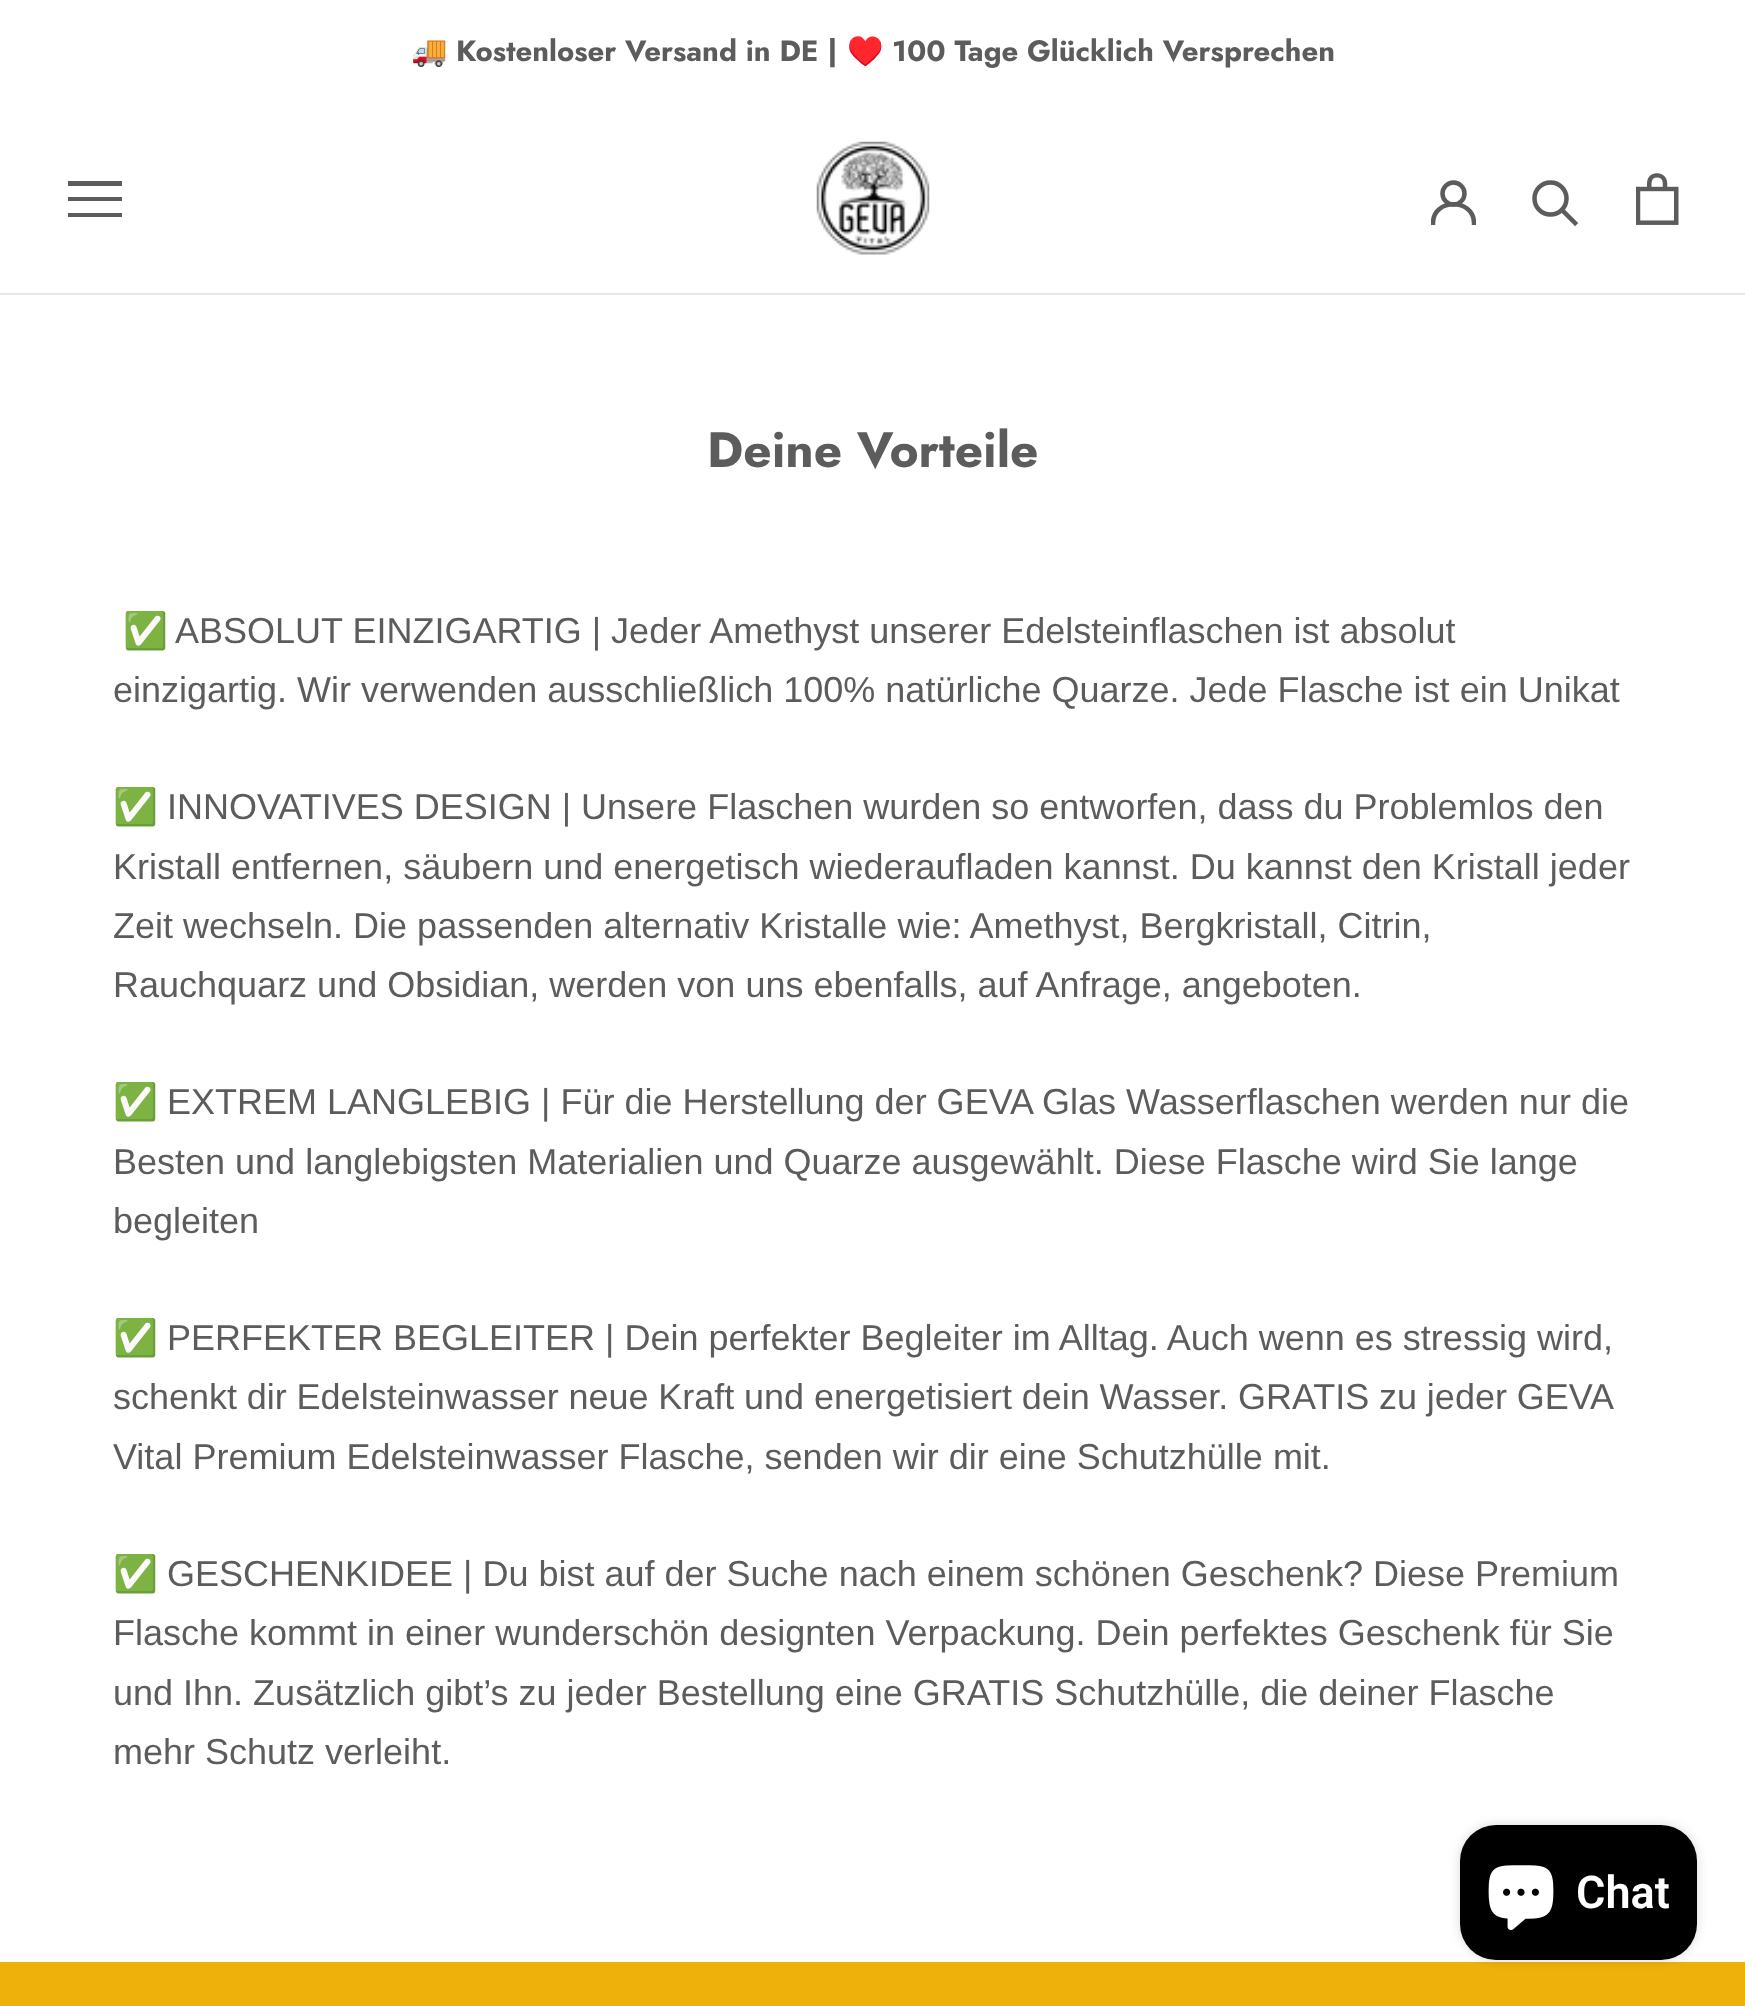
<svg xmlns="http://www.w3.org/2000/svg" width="1745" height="2006">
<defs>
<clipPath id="clip1"><rect x="1431" y="180" width="45" height="45"/></clipPath>
</defs>
<rect width="100%" height="100%" fill="#fff"/>
<text x="411" y="61" style="font-family:Noto Color Emoji;font-size:29.25px;font-weight:bold;fill:#5c5c5c">🚚</text>
<text x="456" y="61" style="font-family:Jost;font-size:29.25px;font-weight:bold;fill:#5c5c5c">Kostenloser Versand in DE |</text>
<text x="847" y="61" style="font-family:Noto Color Emoji;font-size:29.25px;font-weight:bold;fill:#5c5c5c">♥️</text>
<text x="892" y="61" style="font-family:Jost;font-size:29.25px;font-weight:bold;fill:#5c5c5c">100 Tage Glücklich Versprechen</text>
<rect y="293" width="1745" height="2" fill="#e7e7e7"/>
<path d="M68 217v-4h54v4zm0-20h54v4h-54zm0-16h54v5h-54z" fill="#5c5c5c"/>
<image x="816" y="141" width="114" height="114" href="media/1.png"/>
<g clip-path="url(#clip1)">
<path d="M1433 223c0-25 41-25 41 0" fill="none" stroke="#5c5c5c" stroke-width="4.5" stroke-linecap="square"/>
</g>
<circle cx="1453.5" cy="193.5" r="11" fill="none" stroke="#5c5c5c" stroke-width="4.5"/>
<path d="M1575 223l-13-13" fill="none" stroke="#5c5c5c" stroke-width="4.5" stroke-linecap="square"/>
<circle cx="1550.5" cy="198.5" r="16" fill="none" stroke="#5c5c5c" stroke-width="4.5"/>
<image x="1636" y="173" width="43" height="52" href="media/2.png"/>
<text x="707" y="467" style="font-family:Jost;font-size:49.5px;font-weight:bold;fill:#5c5c5c">Deine Vorteile</text>
<text x="123" y="643" style="font-family:Noto Color Emoji;font-size:36px;fill:#5c5c5c">✅</text>
<text x="175" y="643" style="font-family:Liberation Sans;font-size:36px;fill:#5c5c5c">ABSOLUT EINZIGARTIG | Jeder Amethyst unserer Edelsteinflaschen ist absolut</text>
<text x="113" y="702" style="font-family:Liberation Sans;font-size:36px;fill:#5c5c5c">einzigartig. Wir verwenden ausschließlich 100% natürliche Quarze. Jede Flasche ist ein Unikat</text>
<text x="113" y="819" style="font-family:Noto Color Emoji;font-size:36px;fill:#5c5c5c">✅</text>
<text x="167" y="819" style="font-family:Liberation Sans;font-size:36px;fill:#5c5c5c">INNOVATIVES DESIGN | Unsere Flaschen wurden so entworfen, dass du Problemlos den</text>
<text x="113" y="879" style="font-family:Liberation Sans;font-size:36px;fill:#5c5c5c">Kristall entfernen, säubern und energetisch wiederaufladen kannst. Du kannst den Kristall jeder</text>
<text x="113" y="938" style="font-family:Liberation Sans;font-size:36px;fill:#5c5c5c">Zeit wechseln. Die passenden alternativ Kristalle wie: Amethyst, Bergkristall, Citrin,</text>
<text x="113" y="997" style="font-family:Liberation Sans;font-size:36px;fill:#5c5c5c">Rauchquarz und Obsidian, werden von uns ebenfalls, auf Anfrage, angeboten.</text>
<text x="113" y="1114" style="font-family:Noto Color Emoji;font-size:36px;fill:#5c5c5c">✅</text>
<text x="167" y="1114" style="font-family:Liberation Sans;font-size:36px;fill:#5c5c5c">EXTREM LANGLEBIG | Für die Herstellung der GEVA Glas Wasserflaschen werden nur die</text>
<text x="113" y="1174" style="font-family:Liberation Sans;font-size:36px;fill:#5c5c5c">Besten und langlebigsten Materialien und Quarze ausgewählt. Diese Flasche wird Sie lange</text>
<text x="113" y="1233" style="font-family:Liberation Sans;font-size:36px;fill:#5c5c5c">begleiten</text>
<text x="113" y="1350" style="font-family:Noto Color Emoji;font-size:36px;fill:#5c5c5c">✅</text>
<text x="167" y="1350" style="font-family:Liberation Sans;font-size:36px;fill:#5c5c5c">PERFEKTER BEGLEITER | Dein perfekter Begleiter im Alltag. Auch wenn es stressig wird,</text>
<text x="113" y="1409" word-spacing="-0.25" style="font-family:Liberation Sans;font-size:36px;fill:#5c5c5c">schenkt dir Edelsteinwasser neue Kraft und energetisiert dein Wasser. GRATIS zu jeder GEVA</text>
<text x="113" y="1469" style="font-family:Liberation Sans;font-size:36px;fill:#5c5c5c">Vital Premium Edelsteinwasser Flasche, senden wir dir eine Schutzhülle mit.</text>
<text x="113" y="1586" style="font-family:Noto Color Emoji;font-size:36px;fill:#5c5c5c">✅</text>
<text x="167" y="1586" style="font-family:Liberation Sans;font-size:36px;fill:#5c5c5c">GESCHENKIDEE | Du bist auf der Suche nach einem schönen Geschenk? Diese Premium</text>
<text x="113" y="1645" style="font-family:Liberation Sans;font-size:36px;fill:#5c5c5c">Flasche kommt in einer wunderschön designten Verpackung. Dein perfektes Geschenk für Sie</text>
<text x="113" y="1705" style="font-family:Liberation Sans;font-size:36px;fill:#5c5c5c">und Ihn. Zusätzlich gibt’s zu jeder Bestellung eine GRATIS Schutzhülle, die deiner Flasche</text>
<text x="113" y="1764" style="font-family:Liberation Sans;font-size:36px;fill:#5c5c5c">mehr Schutz verleiht.</text>
<rect y="1962" width="1745" height="44" fill="#eeb10c"/>
<rect x="1460" y="1825" width="237" height="135" rx="36" fill="#00000026" filter="blur(5.5px)"/>
<rect x="1460" y="1825" width="237" height="135" rx="36" fill="#000"/>
<image x="1488" y="1865" width="66" height="65" href="media/3.png"/>
<text x="1576" y="1908" style="font-family:Roboto;font-size:45px;font-weight:600;fill:#fff">Chat</text>
</svg>
